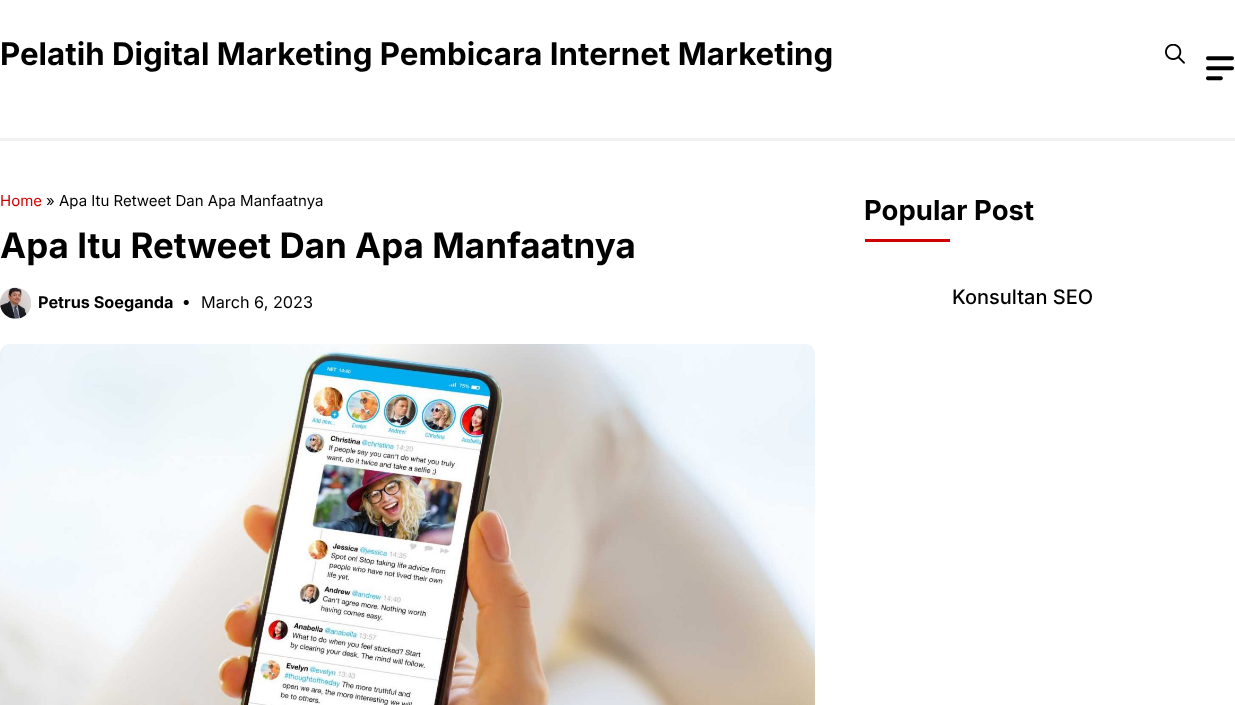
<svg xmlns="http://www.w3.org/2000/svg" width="1235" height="705">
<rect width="100%" height="100%" fill="#fff"/>
<rect y="138" width="1235" height="3" fill="#f1f1f1"/>
<text x="0" y="65" style="font-family:Inter;font-size:31.25px;font-weight:bold;fill:#000">Pelatih Digital Marketing Pembicara Internet Marketing</text>
<image x="1165" y="44" width="20" height="20" href="media/1.png"/>
<image x="1206" y="56" width="28" height="25" href="media/2.png"/>
<text x="0" y="206" style="font-family:Inter;font-size:15px;fill:#ce0000">Home</text>
<text x="46" y="206" style="font-family:Inter;font-size:15px;fill:#000">» Apa Itu Retweet Dan Apa Manfaatnya</text>
<text x="0" y="258" style="font-family:Inter;font-size:35px;font-weight:bold;fill:#000">Apa Itu Retweet Dan Apa Manfaatnya</text>
<image x="0" y="287" width="31" height="32" href="media/3.png"/>
<text x="38" y="308" style="font-family:Inter;font-size:16.25px;font-weight:bold;fill:#000">Petrus Soeganda</text>
<image x="183" y="299" width="6" height="7" href="media/4.png"/>
<text x="201" y="308" style="font-family:Inter;font-size:16.25px;fill:#000">March 6, 2023</text>
<image x="0" y="344" width="815" height="361" href="media/5.png"/>
<text x="864" y="220" style="font-family:Inter;font-size:27.5px;font-weight:bold;fill:#000">Popular Post</text>
<rect x="865" y="239" width="85" height="3" fill="#ce0000"/>
<text x="952" y="304" style="font-family:Inter;font-size:20px;font-weight:500;fill:#000">Konsultan SEO</text>
</svg>
